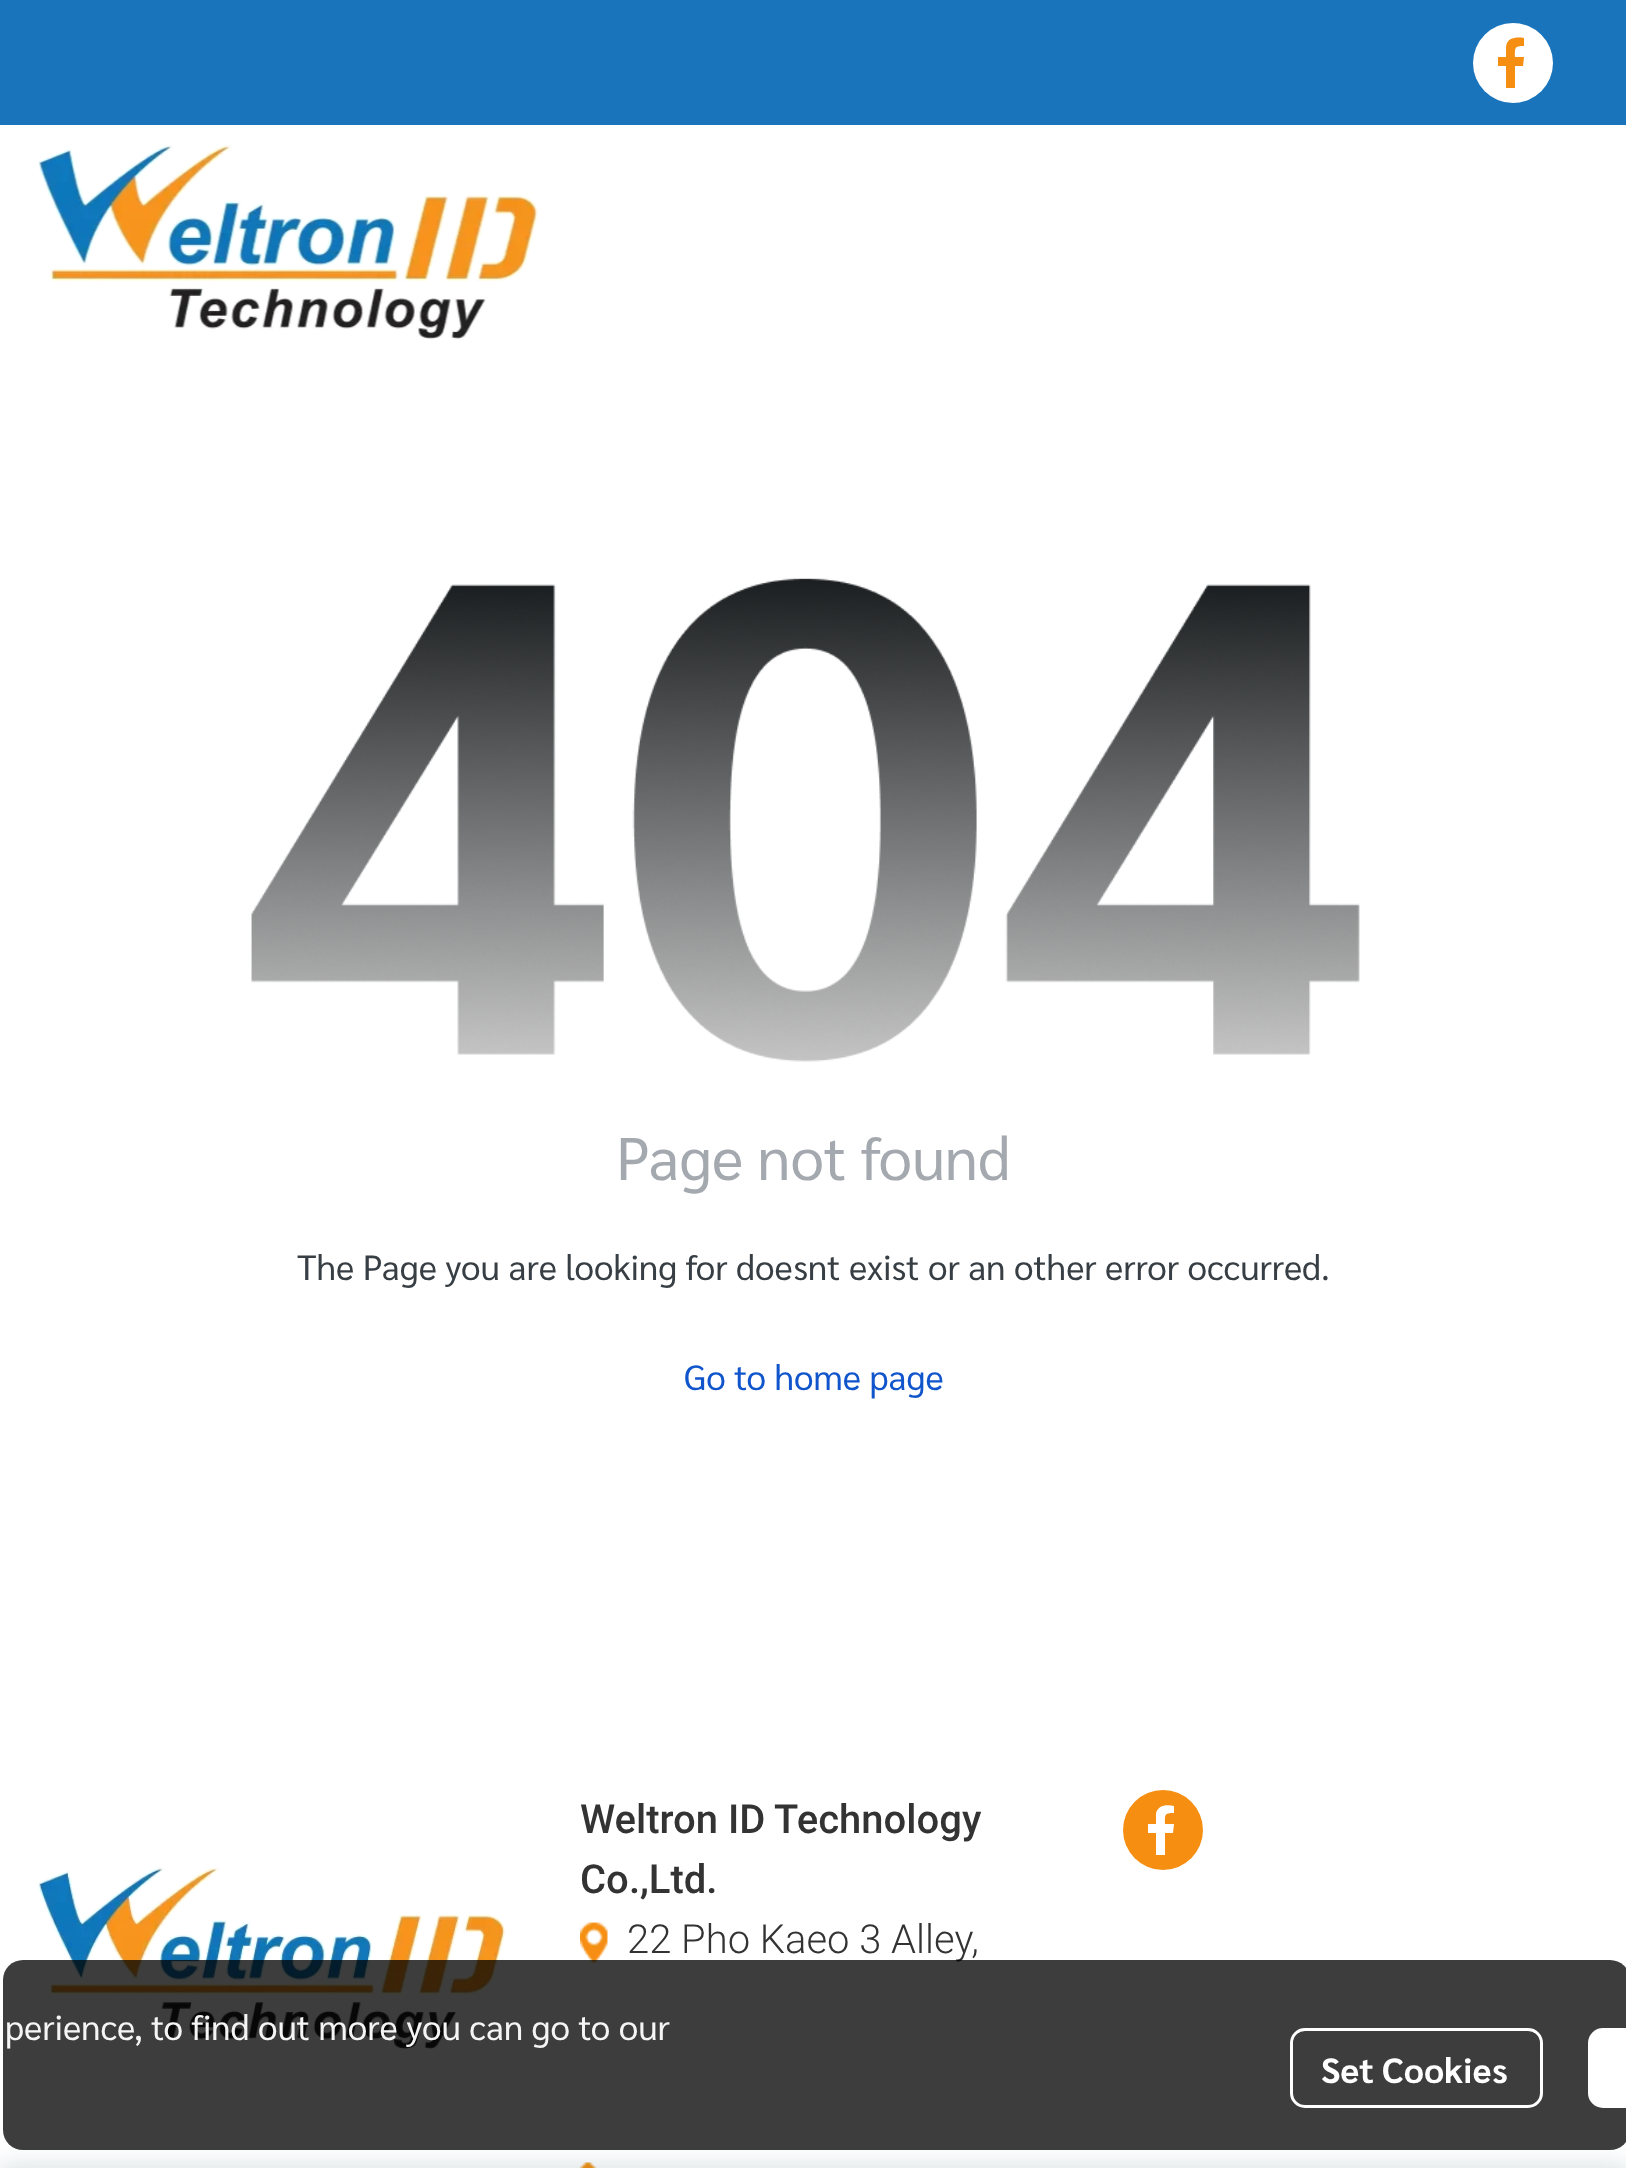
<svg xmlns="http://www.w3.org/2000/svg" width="1626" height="2168">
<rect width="100%" height="100%" fill="#fff"/>
<rect width="1626" height="125" fill="#1974bb"/>
<circle cx="1513" cy="63" r="40" fill="#fff"/>
<path d="M1523 66h-8v22h-9v-22h-8v-9h8v-10c1-10 11-10 18-9v8c-10 0-9 2-9 11h9z" fill="#f68e12"/>
<image x="38" y="145" width="500" height="195" href="media/1.png"/>
<image x="251" y="578" width="1109" height="484" href="media/2.png"/>
<text x="616" y="1180" style="font-family:Sarabun;font-size:60px;fill:#a4a9af">Page not found</text>
<text x="297" y="1280" style="font-family:Sarabun;font-size:35px;fill:#373e44">The Page you are looking for doesnt exist or an other error occurred.</text>
<text x="684" y="1390" style="font-family:Sarabun;font-size:35px;fill:#15c">Go to home page</text>
<image x="38" y="1867" width="467" height="183" href="media/3.png"/>
<text x="580" y="1833" style="font-family:Roboto;font-size:40px;font-weight:500;fill:#333">Weltron ID Technology</text>
<text x="580" y="1893" style="font-family:Roboto;font-size:40px;font-weight:500;fill:#333">Co.,Ltd.</text>
<image x="580" y="1922" width="28" height="41" href="media/4.png"/>
<text x="627" y="1953" style="font-family:Roboto;font-size:40px;font-weight:300;fill:#333">22 Pho Kaeo 3 Alley,</text>
<image x="580" y="2162" width="17" height="6" href="media/5.png"/>
<circle cx="1163" cy="1830" r="40" fill="#f68e12"/>
<path d="M1173 1833h-8v22h-9v-22h-8v-9h8v-10c1-9 11-10 18-8v7c-10 0-9 2-9 11h9z" fill="#fff"/>
<rect y="2165" width="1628" height="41" fill="#00354a26" filter="blur(12.5px)"/>
<rect x="3" y="1960" width="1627" height="190" rx="20" fill="#000000c2"/>
<text x="5" y="2040" style="font-family:Sarabun;font-size:35px;fill:#f5f5f5">perience, to find out more you can go to our</text>
<rect x="1291.5" y="2029.5" width="250" height="77" rx="13.5" fill="none" stroke="#fff" stroke-width="3"/>
<text x="1321" y="2083" style="font-family:Sarabun;font-size:35px;font-weight:bold;fill:#fff">Set Cookies</text>
<rect x="1588" y="2028" width="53" height="80" rx="15" fill="#fff"/>
</svg>
